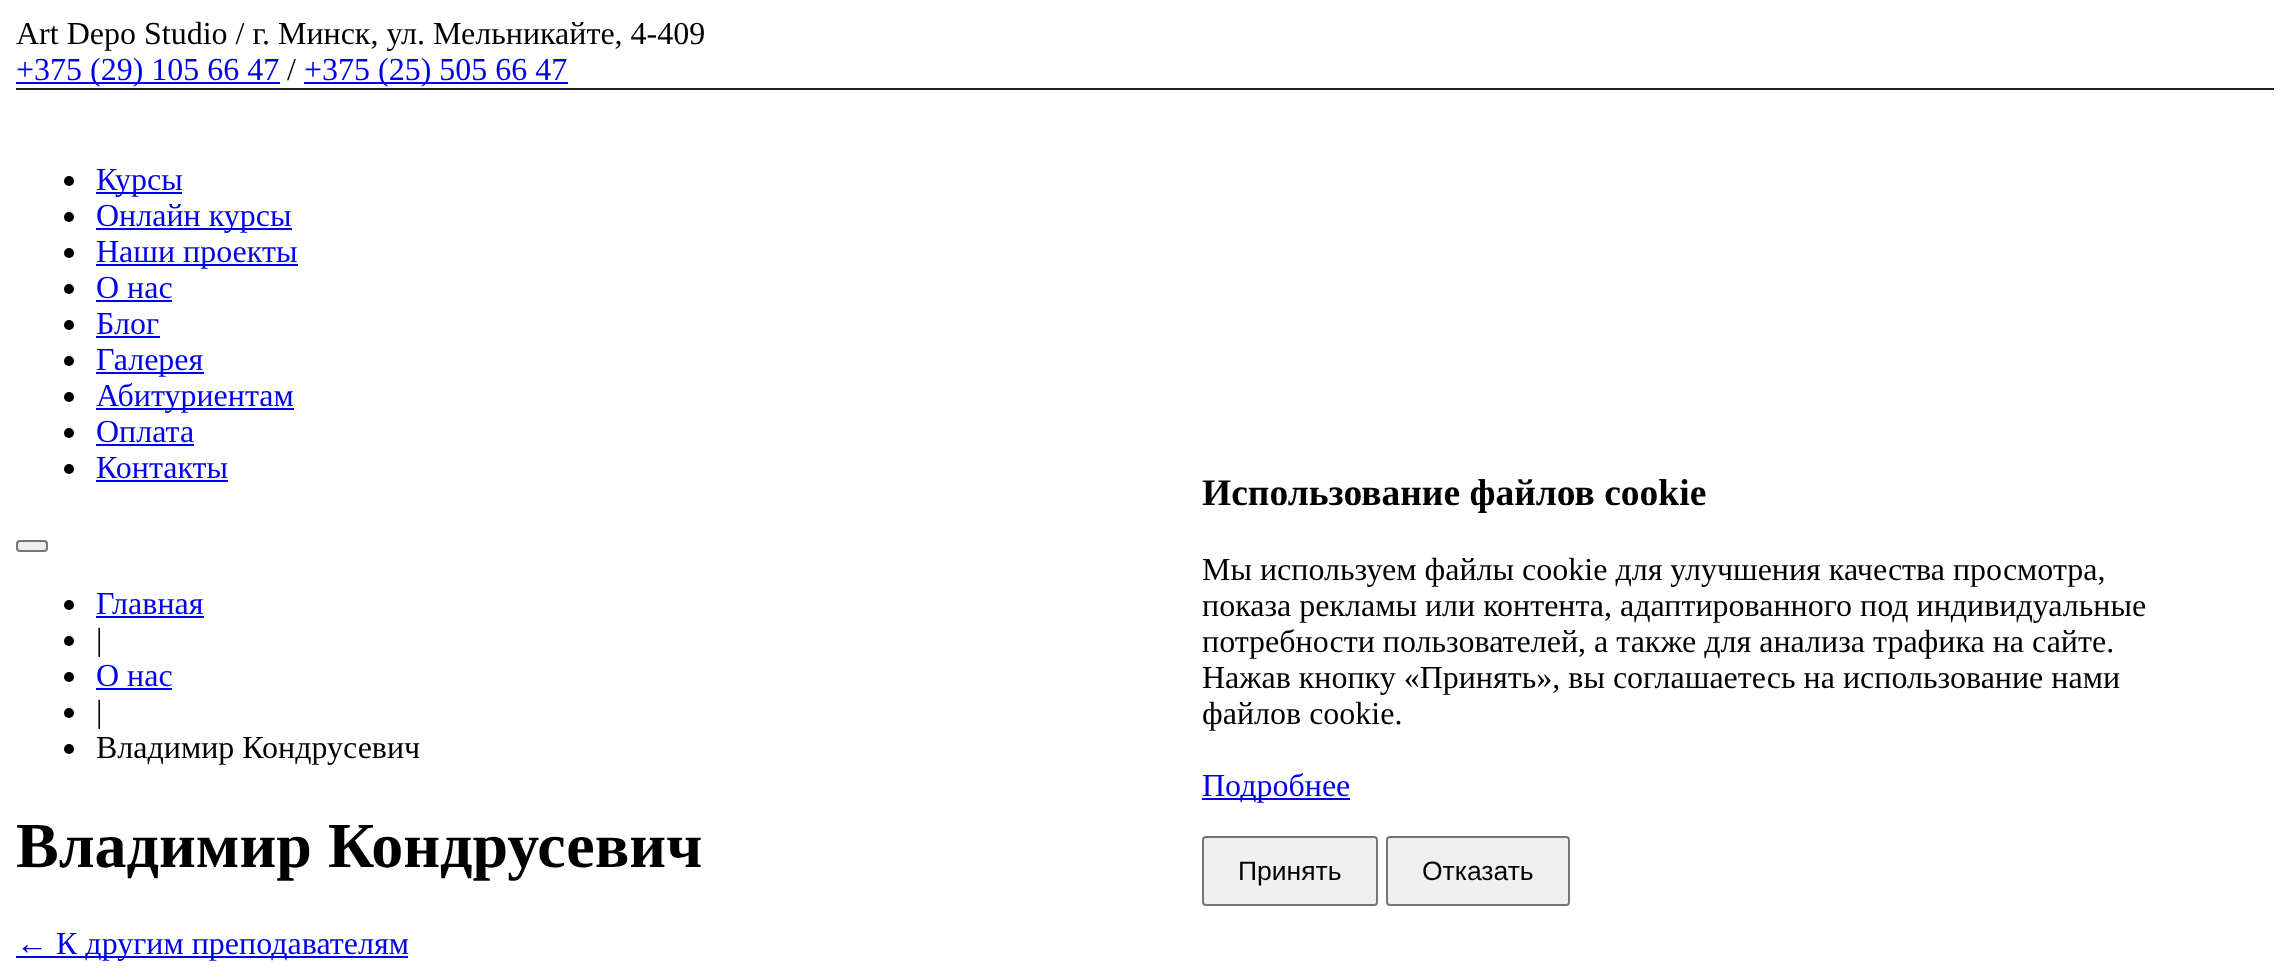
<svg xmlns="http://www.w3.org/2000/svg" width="2289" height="970">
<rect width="100%" height="100%" fill="#fff"/>
<text x="16" y="44" style="font-family:Liberation Serif;font-size:32px;fill:#000">Art Depo Studio / г. Минск, ул. Мельникайте, 4-409</text>
<rect x="16" y="82" width="264" height="2" fill="#00e"/>
<text x="16" y="80" style="font-family:Liberation Serif;font-size:32px;fill:#00e">+375 (29) 105 66 47</text>
<text x="287" y="80" style="font-family:Liberation Serif;font-size:32px;fill:#000">/</text>
<rect x="304" y="82" width="264" height="2" fill="#00e"/>
<text x="304" y="80" style="font-family:Liberation Serif;font-size:32px;fill:#00e">+375 (25) 505 66 47</text>
<rect x="16" y="88" width="2258" height="2" fill="#222"/>
<circle cx="69" cy="181" r="5" fill="#000"/>
<rect x="96" y="192" width="86" height="2" fill="#00e"/>
<text x="96" y="190" style="font-family:Liberation Serif;font-size:32px;fill:#00e">Курсы</text>
<circle cx="69" cy="217" r="5" fill="#000"/>
<rect x="96" y="228" width="196" height="2" fill="#00e"/>
<text x="96" y="226" style="font-family:Liberation Serif;font-size:32px;fill:#00e">Онлайн курсы</text>
<circle cx="69" cy="253" r="5" fill="#000"/>
<rect x="96" y="264" width="202" height="2" fill="#00e"/>
<text x="96" y="262" style="font-family:Liberation Serif;font-size:32px;fill:#00e">Наши проекты</text>
<circle cx="69" cy="289" r="5" fill="#000"/>
<text x="96" y="298" style="font-family:Liberation Serif;font-size:32px;fill:#00e">О нас</text>
<rect x="96" y="300" width="76" height="2" fill="#00e"/>
<circle cx="69" cy="325" r="5" fill="#000"/>
<text x="96" y="334" style="font-family:Liberation Serif;font-size:32px;fill:#00e">Блог</text>
<rect x="96" y="336" width="64" height="2" fill="#00e"/>
<circle cx="69" cy="361" r="5" fill="#000"/>
<rect x="96" y="372" width="108" height="2" fill="#00e"/>
<text x="96" y="370" style="font-family:Liberation Serif;font-size:32px;fill:#00e">Галерея</text>
<circle cx="69" cy="397" r="5" fill="#000"/>
<rect x="96" y="408" width="198" height="2" fill="#00e"/>
<text x="96" y="406" style="font-family:Liberation Serif;font-size:32px;fill:#00e">Абитуриентам</text>
<circle cx="69" cy="433" r="5" fill="#000"/>
<text x="96" y="442" style="font-family:Liberation Serif;font-size:32px;fill:#00e">Оплата</text>
<rect x="96" y="444" width="98" height="2" fill="#00e"/>
<circle cx="69" cy="469" r="5" fill="#000"/>
<text x="96" y="478" style="font-family:Liberation Serif;font-size:32px;fill:#00e">Контакты</text>
<rect x="96" y="480" width="132" height="2" fill="#00e"/>
<rect x="17" y="541" width="30" height="10" rx="3" fill="#efefef" stroke="#767676" stroke-width="2"/>
<circle cx="69" cy="605" r="5" fill="#000"/>
<text x="96" y="614" style="font-family:Liberation Serif;font-size:32px;fill:#00e">Главная</text>
<rect x="96" y="616" width="108" height="2" fill="#00e"/>
<circle cx="69" cy="641" r="5" fill="#000"/>
<text x="96" y="650" style="font-family:Liberation Serif;font-size:32px;fill:#000">|</text>
<circle cx="69" cy="677" r="5" fill="#000"/>
<text x="96" y="686" style="font-family:Liberation Serif;font-size:32px;fill:#00e">О нас</text>
<rect x="96" y="688" width="76" height="2" fill="#00e"/>
<circle cx="69" cy="713" r="5" fill="#000"/>
<text x="96" y="722" style="font-family:Liberation Serif;font-size:32px;fill:#000">|</text>
<circle cx="69" cy="749" r="5" fill="#000"/>
<text x="96" y="758" style="font-family:Liberation Serif;font-size:32px;fill:#000">Владимир Кондрусевич</text>
<text x="1202" y="505" style="font-family:Liberation Serif;font-size:37.5px;font-weight:bold;fill:#000">Использование файлов cookie</text>
<text x="1202" y="580" style="font-family:Liberation Serif;font-size:32px;fill:#000">Мы используем файлы cookie для улучшения качества просмотра,</text>
<text x="1202" y="616" style="font-family:Liberation Serif;font-size:32px;fill:#000">показа рекламы или контента, адаптированного под индивидуальные</text>
<text x="1202" y="652" style="font-family:Liberation Serif;font-size:32px;fill:#000">потребности пользователей, а также для анализа трафика на сайте.</text>
<text x="1202" y="688" style="font-family:Liberation Serif;font-size:32px;fill:#000">Нажав кнопку «Принять», вы соглашаетесь на использование нами</text>
<text x="1202" y="724" style="font-family:Liberation Serif;font-size:32px;fill:#000">файлов cookie.</text>
<rect x="1202" y="798" width="148" height="2" fill="#00e"/>
<text x="1202" y="796" style="font-family:Liberation Serif;font-size:32px;fill:#00e">Подробнее</text>
<rect x="1203" y="837" width="174" height="68" rx="3" fill="#efefef" stroke="#767676" stroke-width="2"/>
<text x="1238" y="880" style="font-family:Liberation Sans;font-size:26.5px;fill:#000">Принять</text>
<rect x="1387" y="837" width="182" height="68" rx="3" fill="#efefef" stroke="#767676" stroke-width="2"/>
<text x="1422" y="880" style="font-family:Liberation Sans;font-size:26.5px;fill:#000">Отказать</text>
<text x="16" y="867" style="font-family:Liberation Serif;font-size:64px;font-weight:bold;fill:#000">Владимир Кондрусевич</text>
<rect x="16" y="956" width="392" height="2" fill="#00e"/>
<text x="16" y="954" style="font-family:Liberation Serif;font-size:32px;fill:#00e">← К другим преподавателям</text>
</svg>
